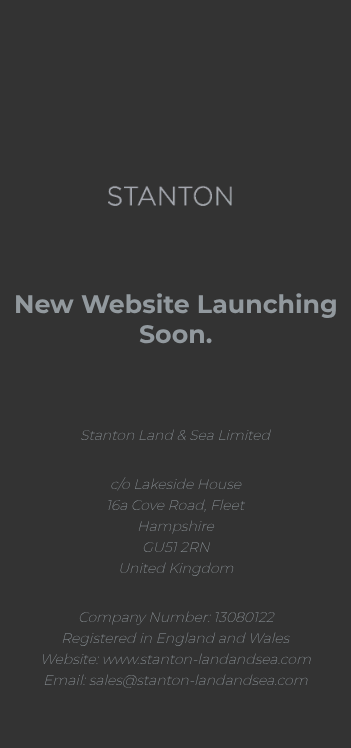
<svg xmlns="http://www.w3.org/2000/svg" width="351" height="748">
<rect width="100%" height="100%" fill="#333"/>
<image x="108" y="185" width="124" height="21" href="media/1.png"/>
<text x="14" y="313" style="font-family:Montserrat;font-size:25.25px;font-weight:bold;fill:#92999e">New Website Launching</text>
<text x="139" y="343" style="font-family:Montserrat;font-size:25.25px;font-weight:bold;fill:#92999e">Soon.</text>
<text x="80" y="440" style="font-family:Montserrat;font-size:14px;font-weight:200;font-style:italic;fill:#92999e">Stanton Land &amp; Sea Limited</text>
<text x="110" y="489" style="font-family:Montserrat;font-size:14px;font-weight:200;font-style:italic;fill:#92999e">c/o Lakeside House</text>
<text x="106" y="510" style="font-family:Montserrat;font-size:14px;font-weight:200;font-style:italic;fill:#92999e">16a Cove Road, Fleet</text>
<text x="137" y="531" style="font-family:Montserrat;font-size:14px;font-weight:200;font-style:italic;fill:#92999e">Hampshire</text>
<text x="142" y="552" style="font-family:Montserrat;font-size:14px;font-weight:200;font-style:italic;fill:#92999e">GU51 2RN</text>
<text x="118" y="573" style="font-family:Montserrat;font-size:14px;font-weight:200;font-style:italic;fill:#92999e">United Kingdom</text>
<text x="78" y="622" style="font-family:Montserrat;font-size:14px;font-weight:200;font-style:italic;fill:#92999e">Company Number: 13080122</text>
<text x="61" y="643" style="font-family:Montserrat;font-size:14px;font-weight:200;font-style:italic;fill:#92999e">Registered in England and Wales</text>
<text x="40" y="664" style="font-family:Montserrat;font-size:14px;font-weight:200;font-style:italic;fill:#92999e">Website: www.stanton-landandsea.com</text>
<text x="43" y="685" style="font-family:Montserrat;font-size:14px;font-weight:200;font-style:italic;fill:#92999e">Email: sales@stanton-landandsea.com</text>
</svg>
